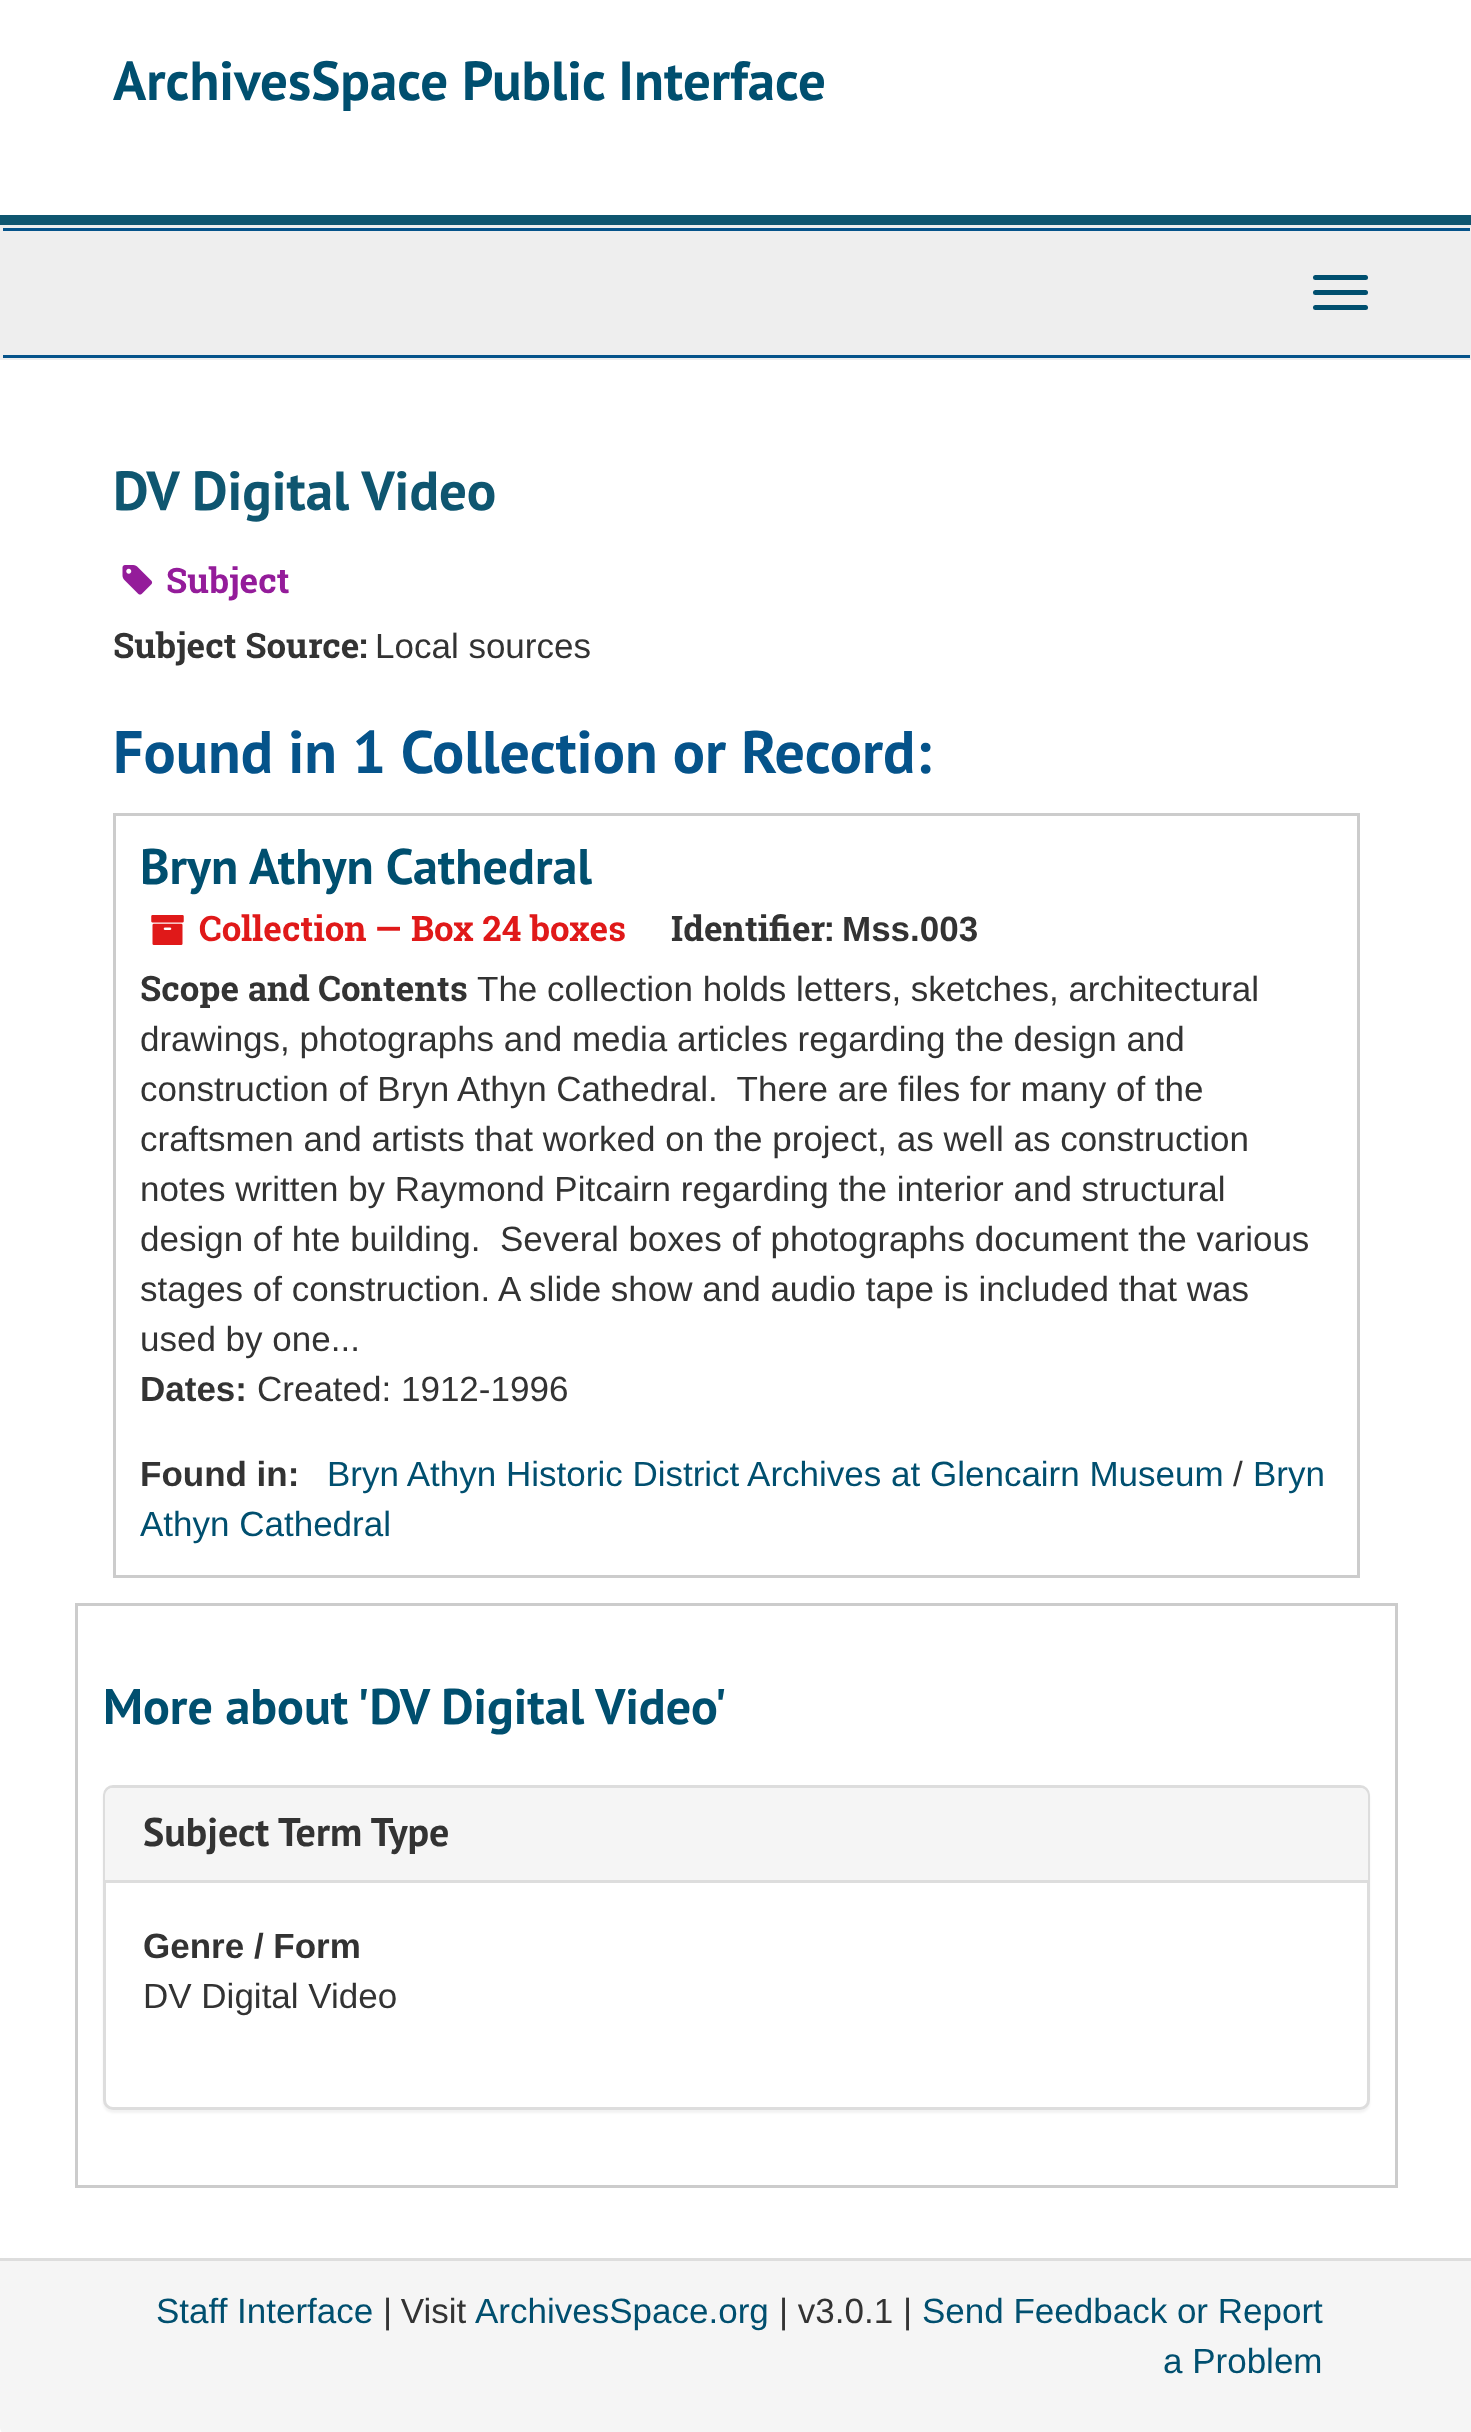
<svg xmlns="http://www.w3.org/2000/svg" width="1471" height="2432">
<rect width="100%" height="100%" fill="#fff"/>
<rect y="215" width="1471" height="10" fill="#0f5670"/>
<text x="113" y="100" style="font-family:PT Sans;font-size:55px;font-weight:bold;fill:#004f6f">ArchivesSpace Public Interface</text>
<rect y="225" width="1471" height="135" fill="#eee"/>
<rect x="3" y="228" width="1467" height="3" fill="#05538a"/>
<rect x="3" y="355" width="1467" height="3" fill="#05538a"/>
<rect x="1313" y="275" width="55" height="5" rx="2.5" fill="#004f6f"/>
<rect x="1313" y="290" width="55" height="5" rx="2.5" fill="#004f6f"/>
<rect x="1313" y="305" width="55" height="5" rx="2.5" fill="#004f6f"/>
<text x="113" y="510" style="font-family:PT Sans;font-size:55px;font-weight:bold;fill:#0f5670">DV Digital Video</text>
<image x="122" y="565" width="31" height="30" href="media/1.png"/>
<text x="166" y="593" style="font-family:Roboto Slab;font-size:35px;font-weight:bold;fill:#941c9a">Subject</text>
<text x="113" y="658" style="font-family:Roboto Slab;font-size:35px;font-weight:bold;fill:#333">Subject Source:</text>
<text x="375" y="658" style="font-family:Liberation Sans;font-size:35px;fill:#333">Local sources</text>
<text x="113" y="773" style="font-family:PT Sans;font-size:60px;font-weight:bold;fill:#05538a">Found in 1 Collection or Record:</text>
<rect x="114.5" y="814.5" width="1244" height="762" fill="none" stroke="#ccc" stroke-width="3"/>
<text x="140" y="884" style="font-family:PT Sans;font-size:50px;font-weight:bold;fill:#004f6f">Bryn Athyn Cathedral</text>
<image x="151" y="915" width="33" height="30" href="media/2.png"/>
<text x="199" y="941" style="font-family:Roboto Slab;font-size:35px;font-weight:bold;fill:#e01919">Collection — Box 24 boxes</text>
<text x="671" y="941" style="font-family:Roboto Slab;font-size:35px;font-weight:bold;fill:#333">Identifier:</text>
<text x="842" y="941" style="font-family:Liberation Sans;font-size:35px;font-weight:bold;fill:#333">Mss.003</text>
<text x="140" y="1001" style="font-family:Roboto Slab;font-size:35px;font-weight:bold;fill:#333">Scope and Contents</text>
<text x="477" y="1001" style="font-family:Liberation Sans;font-size:35px;fill:#333">The collection holds letters, sketches, architectural</text>
<text x="140" y="1051" style="font-family:Liberation Sans;font-size:35px;fill:#333">drawings, photographs and media articles regarding the design and</text>
<text x="140" y="1101" style="font-family:Liberation Sans;font-size:35px;fill:#333" xml:space="preserve">construction of Bryn Athyn Cathedral.  There are files for many of the</text>
<text x="140" y="1151" style="font-family:Liberation Sans;font-size:35px;fill:#333">craftsmen and artists that worked on the project, as well as construction</text>
<text x="140" y="1201" style="font-family:Liberation Sans;font-size:35px;fill:#333">notes written by Raymond Pitcairn regarding the interior and structural</text>
<text x="140" y="1251" style="font-family:Liberation Sans;font-size:35px;fill:#333" xml:space="preserve">design of hte building.  Several boxes of photographs document the various</text>
<text x="140" y="1301" style="font-family:Liberation Sans;font-size:35px;fill:#333">stages of construction. A slide show and audio tape is included that was</text>
<text x="140" y="1351" style="font-family:Liberation Sans;font-size:35px;fill:#333">used by one...</text>
<text x="140" y="1401" style="font-family:Liberation Sans;font-size:35px;font-weight:bold;fill:#333">Dates:</text>
<text x="257" y="1401" style="font-family:Liberation Sans;font-size:35px;fill:#333">Created: 1912-1996</text>
<text x="140" y="1486" style="font-family:Liberation Sans;font-size:35px;font-weight:bold;fill:#333">Found in:</text>
<text x="327" y="1486" style="font-family:Liberation Sans;font-size:35px;fill:#004f6f">Bryn Athyn Historic District Archives at Glencairn Museum</text>
<text x="1233" y="1486" style="font-family:Liberation Sans;font-size:35px;fill:#333">/</text>
<text x="1253" y="1486" style="font-family:Liberation Sans;font-size:35px;fill:#004f6f">Bryn</text>
<text x="140" y="1536" style="font-family:Liberation Sans;font-size:35px;fill:#004f6f">Athyn Cathedral</text>
<rect x="76.5" y="1604.5" width="1320" height="582" fill="none" stroke="#ccc" stroke-width="3"/>
<text x="103" y="1724" style="font-family:PT Sans;font-size:50px;font-weight:bold;fill:#004f6f">More about 'DV Digital Video'</text>
<rect x="103" y="1788" width="1267" height="325" rx="10" fill="#0000000d" filter="blur(1px)"/>
<rect x="104.5" y="1786.5" width="1264" height="322" rx="8.5" fill="#fff" stroke="#ddd" stroke-width="3"/>
<path d="M113 1788h1247c4.5 0 8 3.5 8 8v84h-1263v-84c0-4.5 3.5-8 8-8z" fill="#f5f5f5"/>
<text x="143" y="1846" style="font-family:PT Sans;font-size:40px;font-weight:bold;fill:#333">Subject Term Type</text>
<rect x="105" y="1880" width="1263" height="3" fill="#ddd"/>
<text x="143" y="1958" style="font-family:Liberation Sans;font-size:35px;font-weight:bold;fill:#333">Genre / Form</text>
<text x="143" y="2008" style="font-family:Liberation Sans;font-size:35px;fill:#333">DV Digital Video</text>
<path d="M0 2258h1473v169c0 4.5-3.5 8-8 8h-1457c-4.5 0-8-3.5-8-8z" fill="#f5f5f5"/>
<rect y="2258" width="1471" height="3" fill="#ddd"/>
<text x="156" y="2323" style="font-family:Liberation Sans;font-size:35px;fill:#004f6f">Staff Interface</text>
<text x="383" y="2323" word-spacing="-1" style="font-family:Liberation Sans;font-size:35px;fill:#333">| Visit</text>
<text x="475" y="2323" style="font-family:Liberation Sans;font-size:35px;fill:#004f6f">ArchivesSpace.org</text>
<text x="779" y="2323" style="font-family:Liberation Sans;font-size:35px;fill:#333">| v3.0.1 |</text>
<text x="922" y="2323" style="font-family:Liberation Sans;font-size:35px;fill:#004f6f">Send Feedback or Report</text>
<text x="1163" y="2373" style="font-family:Liberation Sans;font-size:35px;fill:#004f6f">a Problem</text>
</svg>
